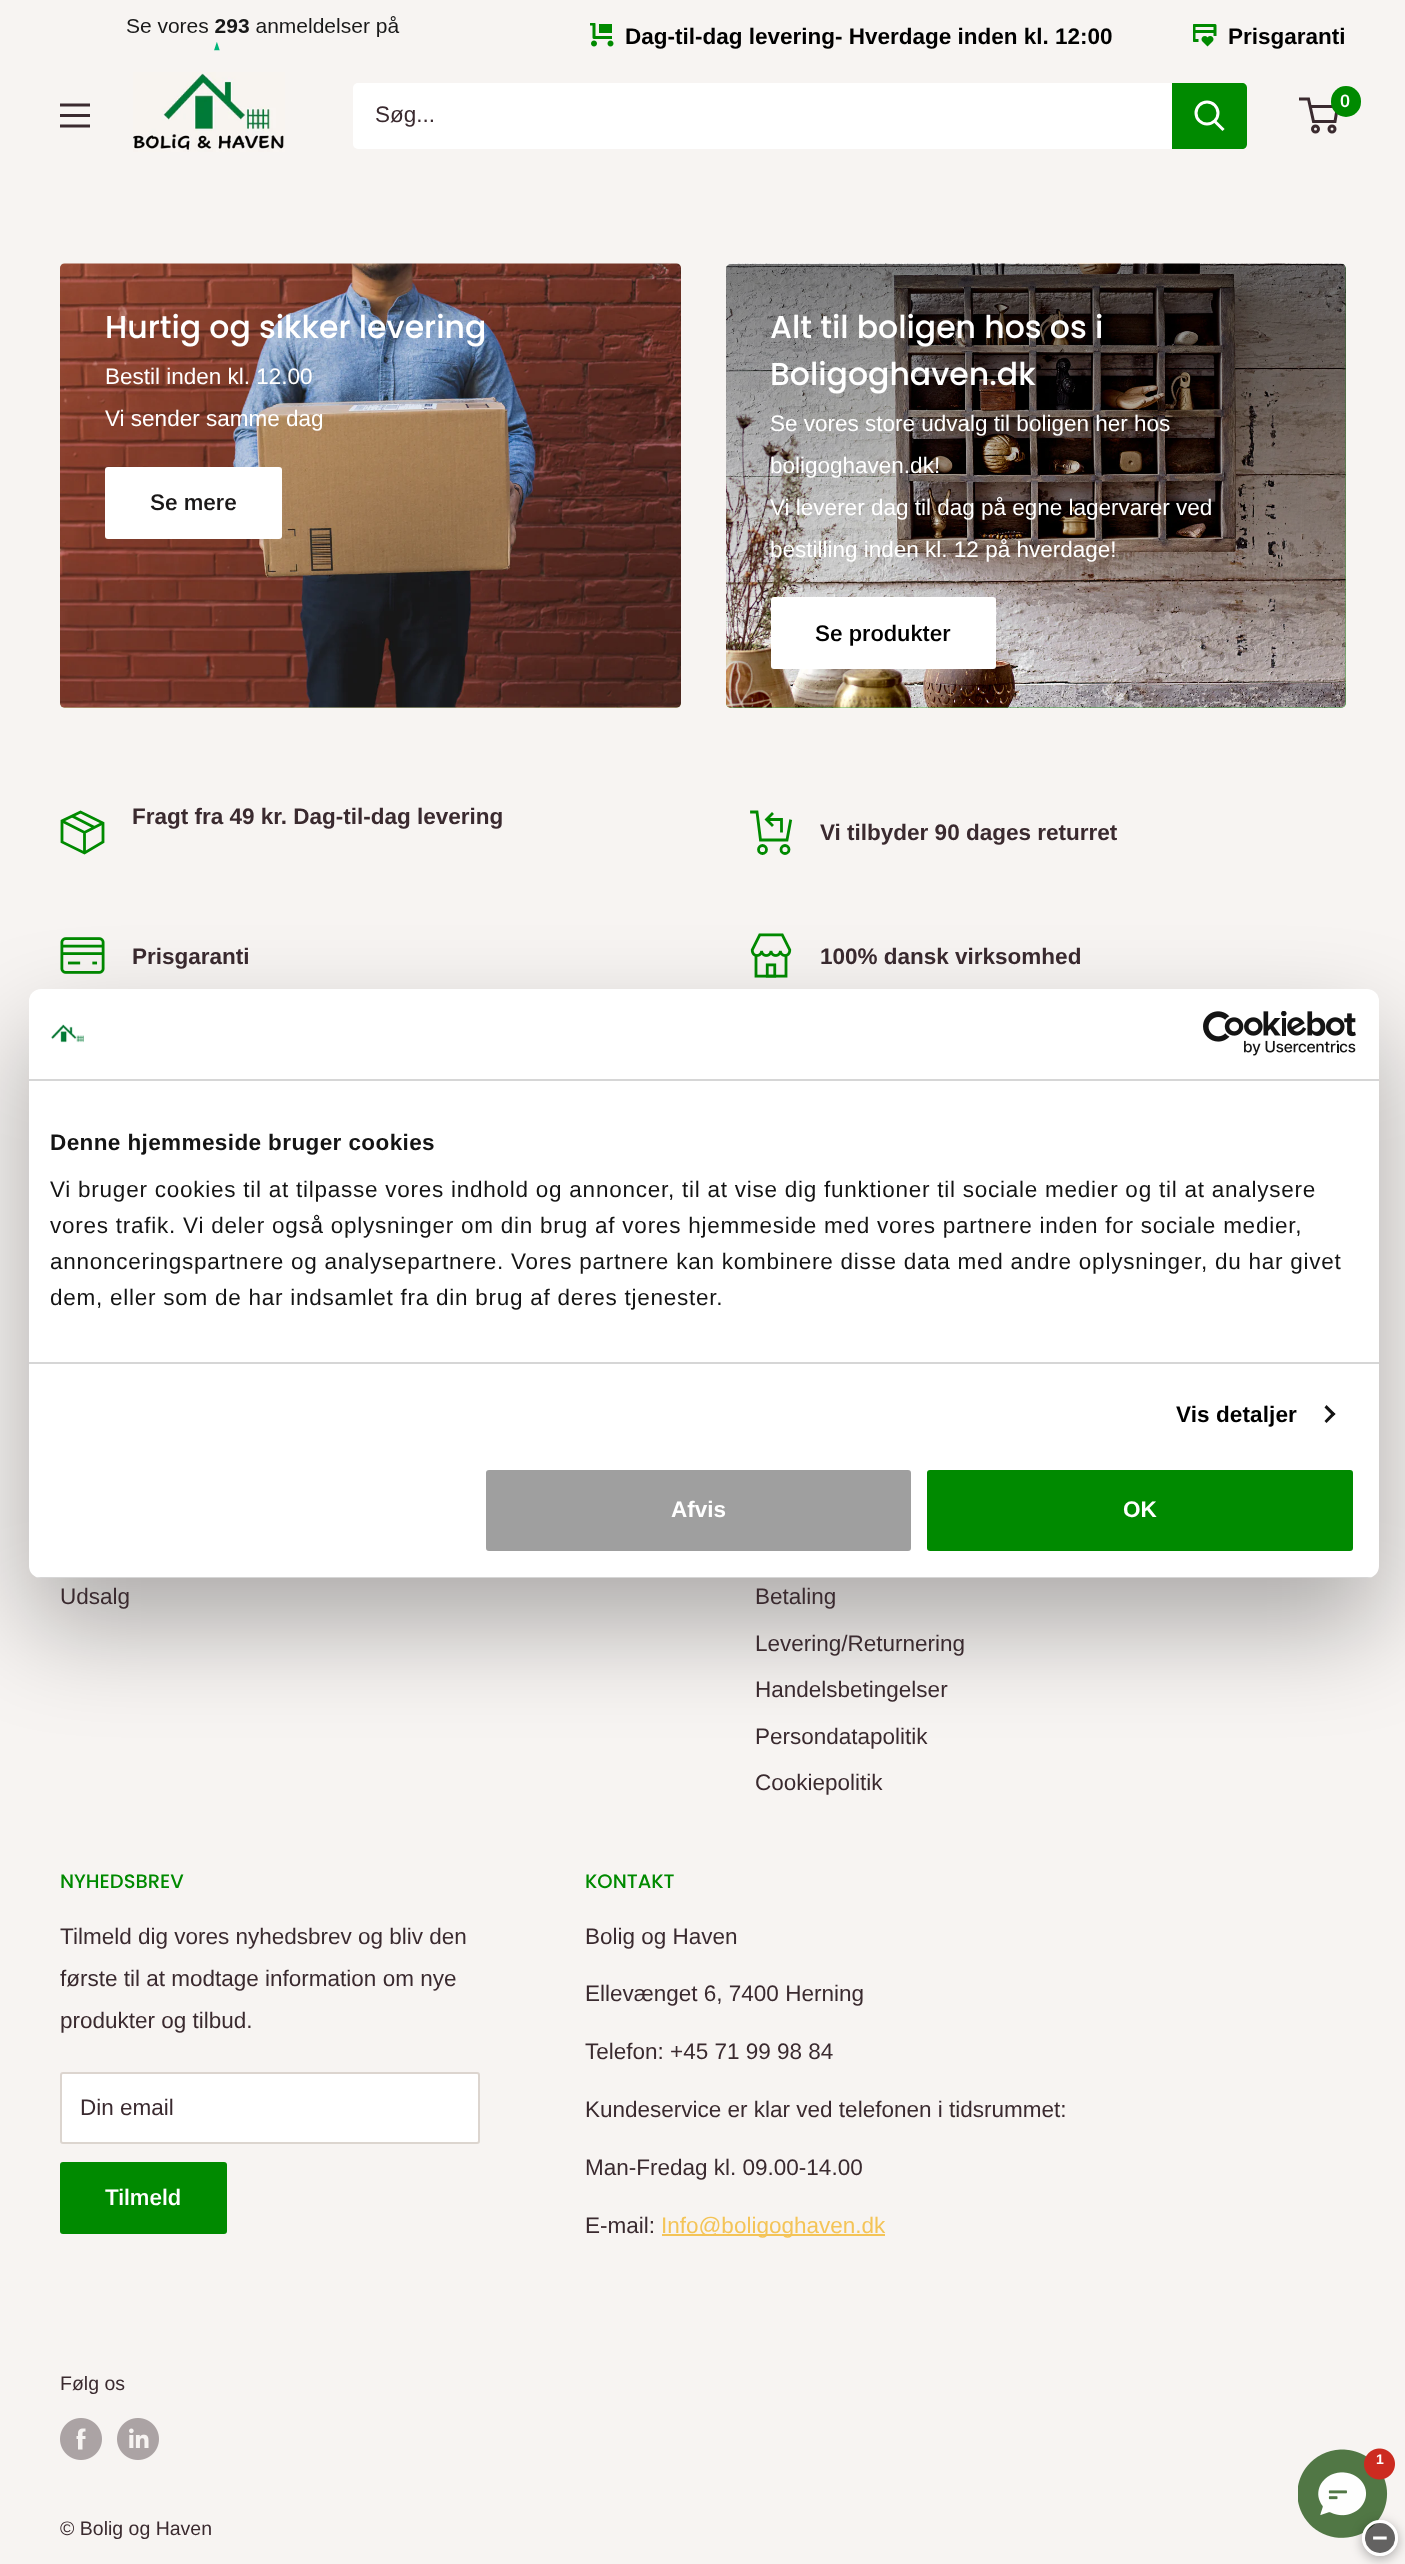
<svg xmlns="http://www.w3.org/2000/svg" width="1405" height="2564">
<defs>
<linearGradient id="g1" gradientUnits="userSpaceOnUse" x1="1036" y1="708" x2="1036" y2="264"><stop offset="0.15" stop-color="#000" stop-opacity="0"/><stop offset="1" stop-color="#000" stop-opacity="0.5"/></linearGradient>
<clipPath id="clip1"><rect x="29" y="989" width="1350" height="589" rx="12"/></clipPath>
<clipPath id="clip2"><path d="M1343 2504h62v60h-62zm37 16c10 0 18 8 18 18c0 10-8 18-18 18c-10 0-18-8-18-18c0-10 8-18 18-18z" clip-rule="evenodd"/></clipPath>
</defs>
<rect width="100%" height="100%" fill="#f7f4f2"/>
<image x="127" y="16" width="273" height="35" href="media/1.png"/>
<image x="590" y="23" width="24" height="24" href="media/2.png"/>
<text x="625" y="44" style="font-family:Arimo;font-size:22.5px;font-weight:bold;fill:#000">Dag-til-dag levering- Hverdage inden kl. 12:00</text>
<image x="1193" y="24" width="24" height="23" href="media/3.png"/>
<text x="1228" y="44" style="font-family:Arimo;font-size:22.5px;font-weight:bold;fill:#000">Prisgaranti</text>
<image x="133" y="72" width="152" height="80" href="media/4.png"/>
<circle cx="1315.5" cy="129" r="3" fill="none" stroke="#3a2a2f" stroke-width="3"/>
<circle cx="1332" cy="129" r="3" fill="none" stroke="#3a2a2f" stroke-width="3"/>
<path d="M1310 106.5h27.5l-2.5 15h-21.5l-5-22.5h-9.5" fill="none" stroke="#3a2a2f" stroke-width="3"/>
<rect x="1331" y="86" width="30" height="31" rx="15" fill="#008a00"/>
<text x="1340" y="107" style="font-family:Arimo;font-size:18px;font-weight:600;fill:#fff">0</text>
<image x="60" y="103" width="30" height="25" href="media/5.png"/>
<rect x="353" y="83" width="894" height="66" rx="5" fill="#fff"/>
<text x="375" y="122" style="font-family:Arimo;font-size:22.5px;fill:#3a2a2f">Søg...</text>
<path d="M1172 83h70c3 0 5 2 5 5v56c0 3-2 5-5 5h-70z" fill="#008a00"/>
<path d="M1222.5 129l-7.5-7.5" fill="none" stroke="#fff" stroke-width="3" stroke-linecap="square"/>
<circle cx="1207" cy="113" r="11" fill="none" stroke="#fff" stroke-width="3"/>
<rect x="60" y="264" width="621" height="444" rx="5" fill="#ccd098"/>
<image x="60" y="263" width="621" height="445" href="media/6.png"/>
<text x="105" y="338" style="font-family:Poppins;font-size:31.5px;font-weight:500;fill:#fff">Hurtig og sikker levering</text>
<text x="105" y="384" style="font-family:Arimo;font-size:22.5px;fill:#fff">Bestil inden kl. 12.00</text>
<text x="105" y="426" style="font-family:Arimo;font-size:22.5px;fill:#fff">Vi sender samme dag</text>
<rect x="105" y="467" width="177" height="72" rx="3" fill="#fff"/>
<text x="150" y="510" style="font-family:Arimo;font-size:22.5px;font-weight:600;fill:#1a1818">Se mere</text>
<rect x="726" y="264" width="620" height="444" rx="5" fill="#48b448"/>
<image x="726" y="263" width="620" height="445" href="media/7.png"/>
<rect x="726" y="264" width="620" height="444" rx="5" fill="url(#g1)"/>
<text x="770" y="338" style="font-family:Poppins;font-size:31.5px;font-weight:500;fill:#fff">Alt til boligen hos os i</text>
<text x="770" y="385" style="font-family:Poppins;font-size:31.5px;font-weight:500;fill:#fff">Boligoghaven.dk</text>
<text x="770" y="431" style="font-family:Arimo;font-size:22.5px;fill:#fff">Se vores store udvalg til boligen her hos</text>
<text x="770" y="473" style="font-family:Arimo;font-size:22.5px;fill:#fff">boligoghaven.dk!</text>
<text x="770" y="515" style="font-family:Arimo;font-size:22.5px;fill:#fff">Vi leverer dag til dag på egne lagervarer ved</text>
<text x="770" y="557" style="font-family:Arimo;font-size:22.5px;fill:#fff">bestilling inden kl. 12 på hverdage!</text>
<rect x="771" y="597" width="225" height="72" rx="3" fill="#fff"/>
<text x="815" y="641" style="font-family:Arimo;font-size:22.5px;font-weight:600;fill:#000">Se produkter</text>
<path d="M72 816l22.5 11.5m8.5-4.5l-18.5 9.5l-22.5-11.5m22.5 11.5v20.5" fill="none" stroke="#008a00" stroke-width="2.8"/>
<path d="M103 823v19l-18.5 11l-22.5-11v-21l18.5-9z" fill="none" stroke="#008a00" stroke-width="2.8" stroke-linecap="square"/>
<text x="132" y="824" style="font-family:Arimo;font-size:22.5px;font-weight:bold;fill:#3a2a2f">Fragt fra 49 kr. Dag-til-dag levering</text>
<path d="M766.5 819.5h15v13" fill="none" stroke="#008a00" stroke-width="2.8"/>
<path d="M772 825l-5.5-5.5l5.5-5.5" fill="none" stroke="#008a00" stroke-width="2.8" stroke-linecap="square"/>
<path d="M790.5 821l-3.5 19h-26.5l-3.5-28h-5.5" fill="none" stroke="#008a00" stroke-width="2.8" stroke-linecap="square"/>
<circle cx="762.5" cy="849.5" r="4" fill="none" stroke="#008a00" stroke-width="2.8"/>
<circle cx="785" cy="849.5" r="4" fill="none" stroke="#008a00" stroke-width="2.8"/>
<text x="820" y="840" style="font-family:Arimo;font-size:22.5px;font-weight:bold;fill:#3a2a2f">Vi tilbyder 90 dages returret</text>
<image x="60" y="937" width="45" height="37" href="media/8.png"/>
<text x="132" y="964" style="font-family:Arimo;font-size:22.5px;font-weight:bold;fill:#3a2a2f">Prisgaranti</text>
<image x="750" y="933" width="42" height="45" href="media/9.png"/>
<text x="820" y="964" style="font-family:Arimo;font-size:22.5px;font-weight:bold;fill:#3a2a2f">100% dansk virksomhed</text>
<rect x="29" y="1037" width="1350" height="589" rx="12" fill="#0000004d" filter="blur(51px)"/>
<rect x="29" y="989" width="1350" height="589" rx="12" fill="#fff"/>
<rect x="29" y="1079" width="1350" height="2" fill="#d6d6d6"/>
<image x="51" y="1024" width="33" height="19" href="media/10.png"/>
<image x="1203" y="1011" width="153" height="45" href="media/11.png"/>
<rect x="29" y="1362" width="1350" height="2" fill="#d6d6d6"/>
<text x="50" y="1150" style="font-family:Liberation Sans;font-size:22.5px;font-weight:bold;letter-spacing:0.4px;fill:#141414">Denne hjemmeside bruger cookies</text>
<text x="50" y="1197" style="font-family:Liberation Sans;font-size:22.5px;letter-spacing:0.75px;fill:#141414">Vi bruger cookies til at tilpasse vores indhold og annoncer, til at vise dig funktioner til sociale medier og til at analysere</text>
<text x="50" y="1233" style="font-family:Liberation Sans;font-size:22.5px;letter-spacing:0.75px;fill:#141414">vores trafik. Vi deler også oplysninger om din brug af vores hjemmeside med vores partnere inden for sociale medier,</text>
<text x="50" y="1269" style="font-family:Liberation Sans;font-size:22.5px;letter-spacing:0.75px;fill:#141414">annonceringspartnere og analysepartnere. Vores partnere kan kombinere disse data med andre oplysninger, du har givet</text>
<text x="50" y="1305" style="font-family:Liberation Sans;font-size:22.5px;letter-spacing:0.75px;fill:#141414">dem, eller som de har indsamlet fra din brug af deres tjenester.</text>
<text x="1176" y="1422" style="font-family:Liberation Sans;font-size:22.5px;font-weight:bold;letter-spacing:0.1px;fill:#000">Vis detaljer</text>
<path d="M1326.5 1405l9 9l-2.5 2l-8.5-8.5z" fill="#141414"/>
<path d="M1333 1412l2.5 2l-9 9l-2-2z" fill="#141414"/>
<g clip-path="url(#clip1)">
<rect x="29" y="1577" width="1350" height="1" fill="#d6d6d6"/>
</g>
<rect x="484.5" y="1468.5" width="428" height="84" rx="4.5" fill="#9f9f9f" stroke="#fff" stroke-width="3"/>
<text x="671" y="1517" style="font-family:Liberation Sans;font-size:22.5px;font-weight:bold;fill:#fff">Afvis</text>
<rect x="925.5" y="1468.5" width="429" height="84" rx="4.5" fill="#008a00" stroke="#fff" stroke-width="3"/>
<text x="1123" y="1517" style="font-family:Liberation Sans;font-size:22.5px;font-weight:bold;fill:#fff">OK</text>
<text x="60" y="1604" style="font-family:Arimo;font-size:22.5px;fill:#3a2a2f">Udsalg</text>
<text x="755" y="1604" style="font-family:Arimo;font-size:22.5px;fill:#3a2a2f">Betaling</text>
<text x="755" y="1651" style="font-family:Arimo;font-size:22.5px;fill:#3a2a2f">Levering/Returnering</text>
<text x="755" y="1697" style="font-family:Arimo;font-size:22.5px;fill:#3a2a2f">Handelsbetingelser</text>
<text x="755" y="1744" style="font-family:Arimo;font-size:22.5px;fill:#3a2a2f">Persondatapolitik</text>
<text x="755" y="1790" style="font-family:Arimo;font-size:22.5px;fill:#3a2a2f">Cookiepolitik</text>
<text x="60" y="1888" style="font-family:Poppins;font-size:19.5px;font-weight:500;fill:#008a00">NYHEDSBREV</text>
<text x="60" y="1944" style="font-family:Arimo;font-size:22.5px;fill:#3a2a2f">Tilmeld dig vores nyhedsbrev og bliv den</text>
<text x="60" y="1986" style="font-family:Arimo;font-size:22.5px;fill:#3a2a2f">første til at modtage information om nye</text>
<text x="60" y="2028" style="font-family:Arimo;font-size:22.5px;fill:#3a2a2f">produkter og tilbud.</text>
<rect x="61" y="2073" width="418" height="70" rx="2" fill="#fff" stroke="#dcd5cf" stroke-width="2"/>
<text x="80" y="2115" style="font-family:Arimo;font-size:22.5px;fill:#3a2a2f">Din email</text>
<rect x="60" y="2162" width="167" height="72" rx="3" fill="#008a00"/>
<text x="105" y="2205" style="font-family:Arimo;font-size:22.5px;font-weight:600;fill:#fff">Tilmeld</text>
<text x="585" y="1888" style="font-family:Poppins;font-size:19.5px;font-weight:500;fill:#008a00">KONTAKT</text>
<text x="585" y="1944" style="font-family:Arimo;font-size:22.5px;fill:#3a2a2f">Bolig og Haven</text>
<text x="585" y="2001" style="font-family:Arimo;font-size:22.5px;fill:#3a2a2f">Ellevænget 6, 7400 Herning</text>
<text x="585" y="2059" style="font-family:Arimo;font-size:22.5px;fill:#3a2a2f">Telefon: +45 71 99 98 84</text>
<text x="585" y="2117" style="font-family:Arimo;font-size:22.5px;fill:#3a2a2f">Kundeservice er klar ved telefonen i tidsrummet:</text>
<text x="585" y="2175" style="font-family:Arimo;font-size:22.5px;fill:#3a2a2f">Man-Fredag kl. 09.00-14.00</text>
<text x="585" y="2233" style="font-family:Arimo;font-size:22.5px;fill:#3a2a2f">E-mail:</text>
<rect x="662" y="2234" width="223" height="2" fill="#f4c457"/>
<text x="661" y="2233" style="font-family:Arimo;font-size:22.5px;fill:#f4c457">Info@boligoghaven.dk</text>
<text x="60" y="2390" style="font-family:Arimo;font-size:19.5px;fill:#3a2a2f">Følg os</text>
<image x="60" y="2418" width="42" height="42" href="media/12.png"/>
<image x="117" y="2418" width="42" height="42" href="media/13.png"/>
<text x="60" y="2535" style="font-family:Arimo;font-size:19.5px;fill:#3a2a2f">© Bolig og Haven</text>
<image x="1298" y="2448" width="97" height="90" href="media/14.png"/>
<text x="1376" y="2464" style="font-family:Arimo;font-size:14px;font-weight:bold;fill:#fff">1</text>
<g clip-path="url(#clip2)">
<rect x="1362" y="2523" width="36" height="36" rx="18" fill="#0000004d" filter="blur(6px)"/>
</g>
<circle cx="1380" cy="2538" r="16.5" fill="#00000099" stroke="#fff" stroke-width="3"/>
<text x="1372" y="2547" style="font-family:Liberation Sans;font-size:27px;font-weight:bold;fill:#fff">−</text>
</svg>
